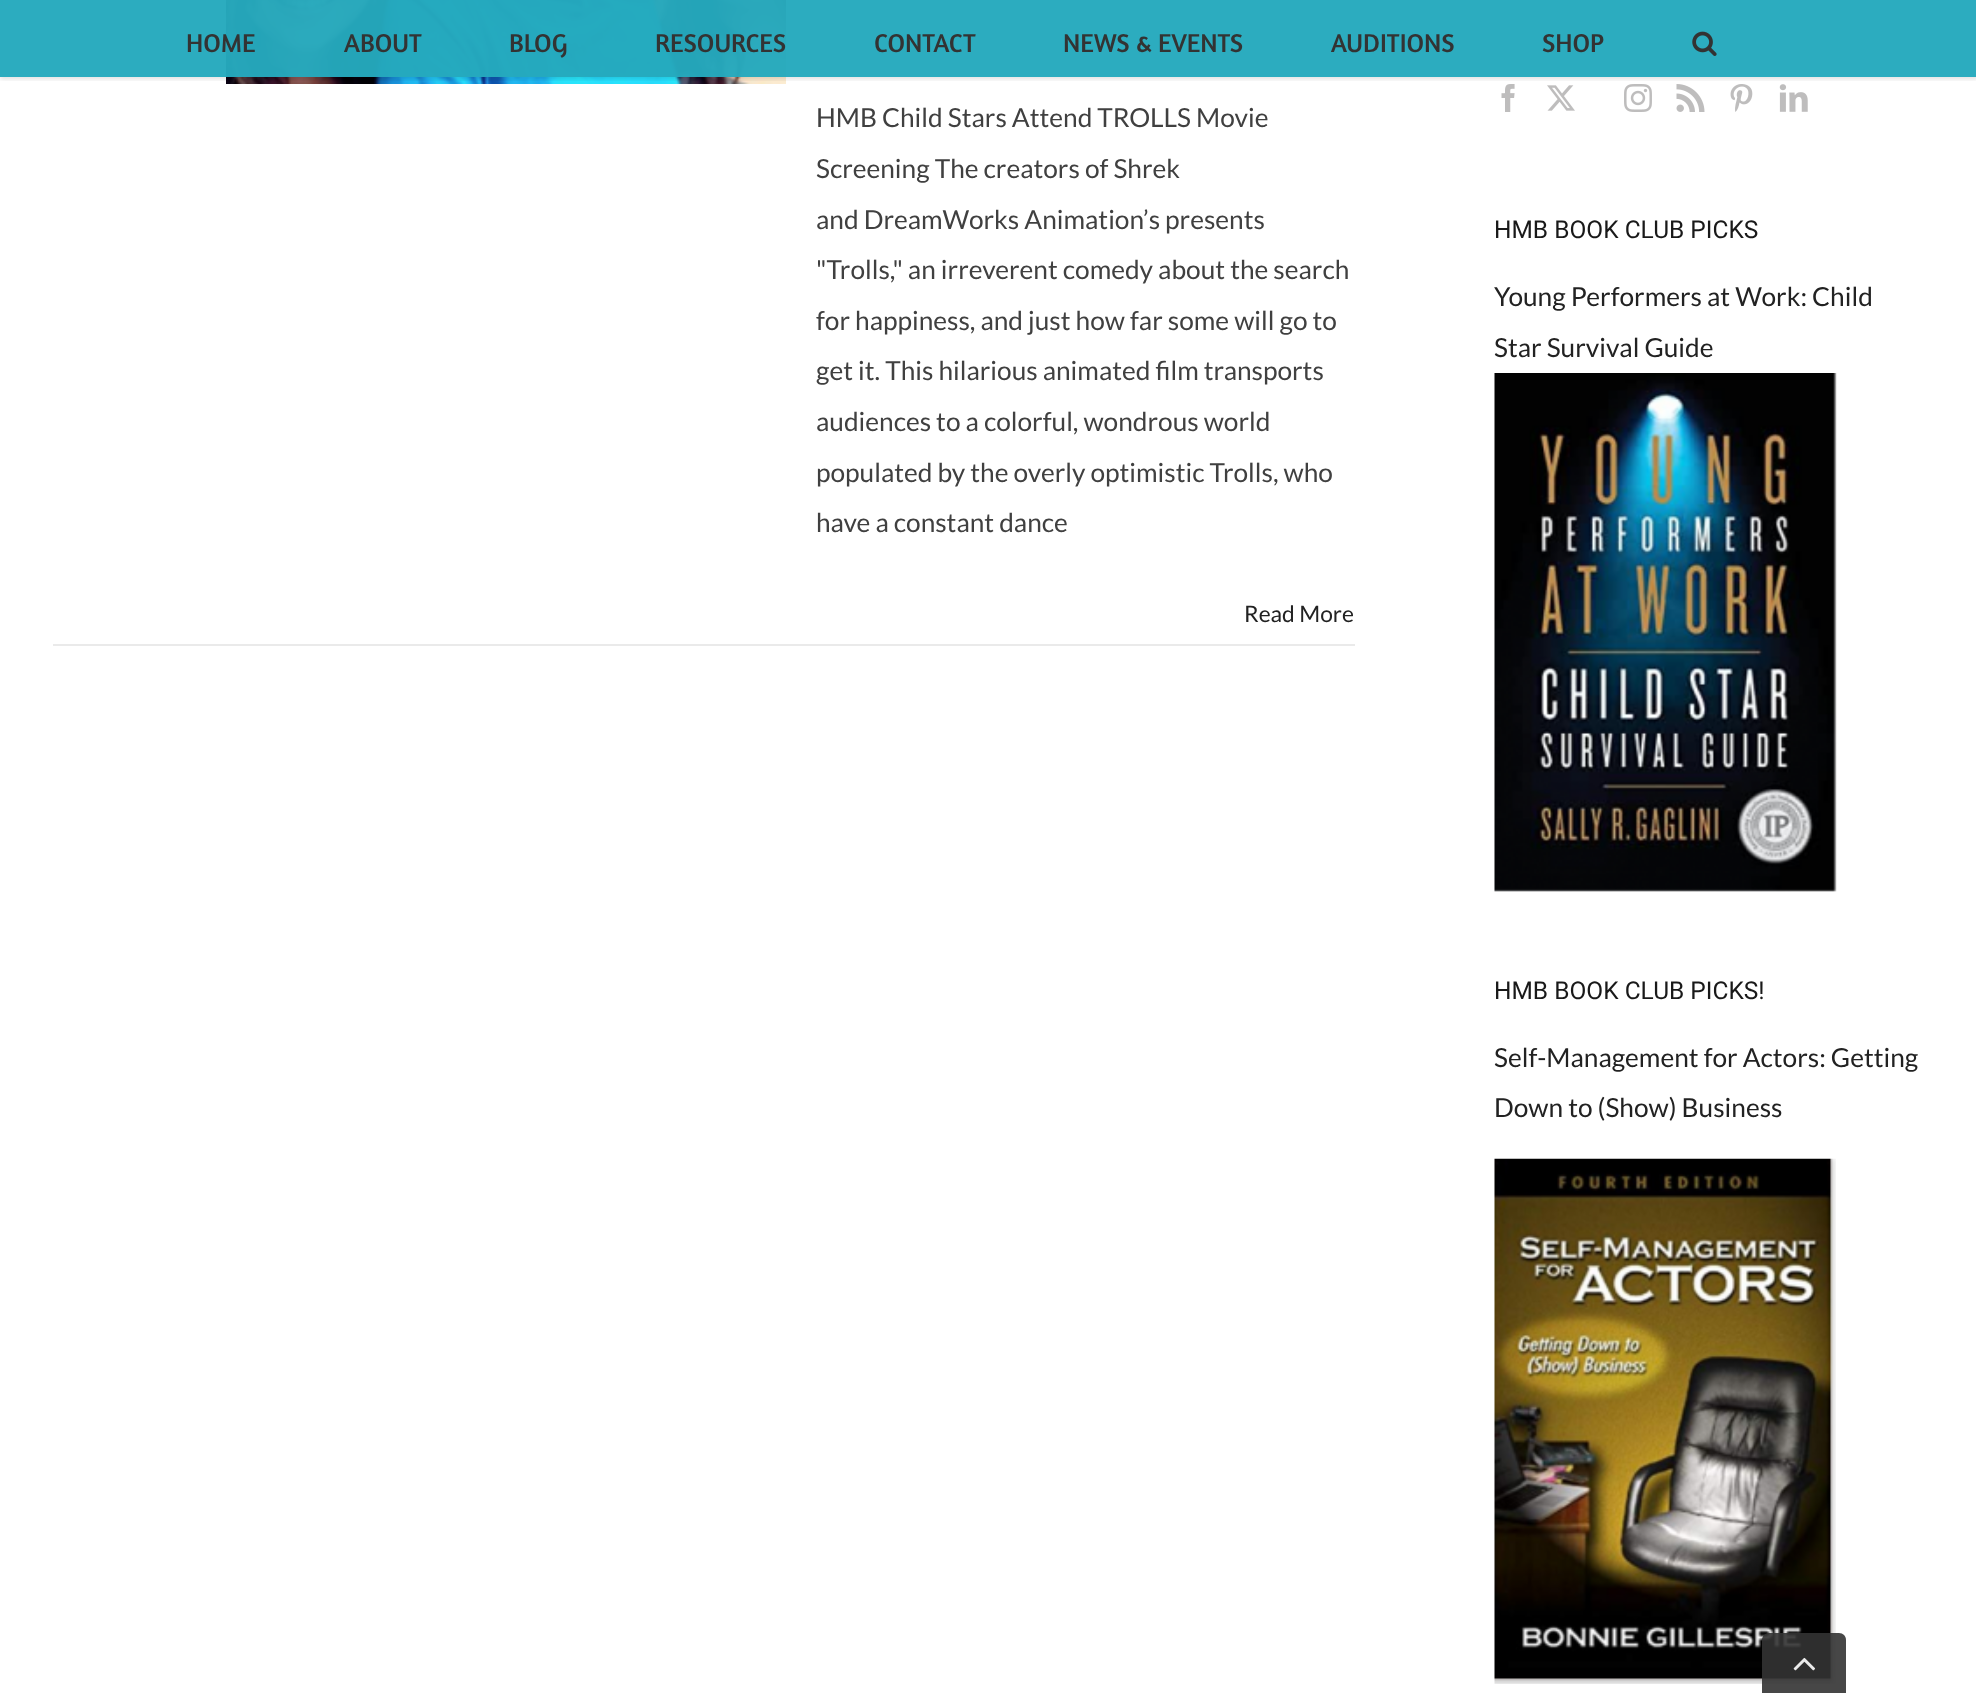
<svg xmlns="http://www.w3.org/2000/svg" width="1976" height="1693">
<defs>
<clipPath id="clip1"><rect x="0" y="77" width="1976" height="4"/></clipPath>
</defs>
<rect width="100%" height="100%" fill="#fff"/>
<rect width="1976" height="77" fill="#2cacbf"/>
<image x="226" y="0" width="560" height="84" href="media/2.png"/>
<image x="1501" y="84" width="14" height="28" href="media/3.png"/>
<image x="1547" y="85" width="28" height="26" href="media/4.png"/>
<image x="1624" y="84" width="28" height="28" href="media/5.png"/>
<image x="1676" y="84" width="29" height="28" href="media/6.png"/>
<image x="1730" y="84" width="23" height="28" href="media/7.png"/>
<image x="1779" y="84" width="29" height="28" href="media/8.png"/>
<g clip-path="url(#clip1)">
<rect y="2" width="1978" height="77" fill="#0000001f" filter="blur(2.5px)"/>
</g>
<text x="186" y="52" style="font-family:Amaranth;font-size:26.25px;fill:#333">HOME</text>
<text x="344" y="52" style="font-family:Amaranth;font-size:26.25px;fill:#333">ABOUT</text>
<text x="509" y="52" style="font-family:Amaranth;font-size:26.25px;fill:#333">BLOG</text>
<text x="655" y="52" style="font-family:Amaranth;font-size:26.25px;fill:#333">RESOURCES</text>
<text x="874" y="52" style="font-family:Amaranth;font-size:26.25px;fill:#333">CONTACT</text>
<text x="1063" y="52" style="font-family:Amaranth;font-size:26.25px;fill:#333">NEWS &amp; EVENTS</text>
<text x="1331" y="52" style="font-family:Amaranth;font-size:26.25px;fill:#333">AUDITIONS</text>
<text x="1542" y="52" style="font-family:Amaranth;font-size:26.25px;fill:#333">SHOP</text>
<image x="1692" y="31" width="25" height="25" href="media/1.png"/>
<text x="816" y="127" style="font-family:Lato;font-size:26.25px;fill:#404040">HMB Child Stars Attend TROLLS Movie</text>
<text x="816" y="178" style="font-family:Lato;font-size:26.25px;fill:#404040">Screening The creators of Shrek</text>
<text x="816" y="229" style="font-family:Lato;font-size:26.25px;fill:#404040">and DreamWorks Animation’s presents</text>
<text x="816" y="279" style="font-family:Lato;font-size:26.25px;fill:#404040">"Trolls," an irreverent comedy about the search</text>
<text x="816" y="330" style="font-family:Lato;font-size:26.25px;fill:#404040">for happiness, and just how far some will go to</text>
<text x="816" y="380" style="font-family:Lato;font-size:26.25px;fill:#404040">get it. This hilarious animated film transports</text>
<text x="816" y="431" style="font-family:Lato;font-size:26.25px;fill:#404040">audiences to a colorful, wondrous world</text>
<text x="816" y="482" style="font-family:Lato;font-size:26.25px;fill:#404040">populated by the overly optimistic Trolls, who</text>
<text x="816" y="532" style="font-family:Lato;font-size:26.25px;fill:#404040">have a constant dance</text>
<rect x="53" y="644" width="1302" height="2" fill="#eaeaea"/>
<text x="1244" y="622" style="font-family:Lato;font-size:22.75px;fill:#222">Read More</text>
<text x="1494" y="238" style="font-family:Roboto;font-size:24.5px;fill:#191919">HMB BOOK CLUB PICKS</text>
<text x="1494" y="306" style="font-family:Lato;font-size:26.25px;fill:#222">Young Performers at Work: Child</text>
<text x="1494" y="357" style="font-family:Lato;font-size:26.25px;fill:#222">Star Survival Guide</text>
<image x="1494" y="373" width="343" height="519" href="media/9.png"/>
<text x="1494" y="999" style="font-family:Roboto;font-size:24.5px;fill:#191919">HMB BOOK CLUB PICKS!</text>
<text x="1494" y="1067" style="font-family:Lato;font-size:26.25px;fill:#222">Self-Management for Actors: Getting</text>
<text x="1494" y="1117" style="font-family:Lato;font-size:26.25px;fill:#222">Down to (Show) Business</text>
<image x="1494" y="1158" width="342" height="526" href="media/10.png"/>
<path d="M1769 1633h70c4 0 7 3 7 7v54h-84v-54c0-4 3-7 7-7z" fill="#333333e6"/>
<image x="1793" y="1657" width="22" height="14" href="media/11.png"/>
</svg>
